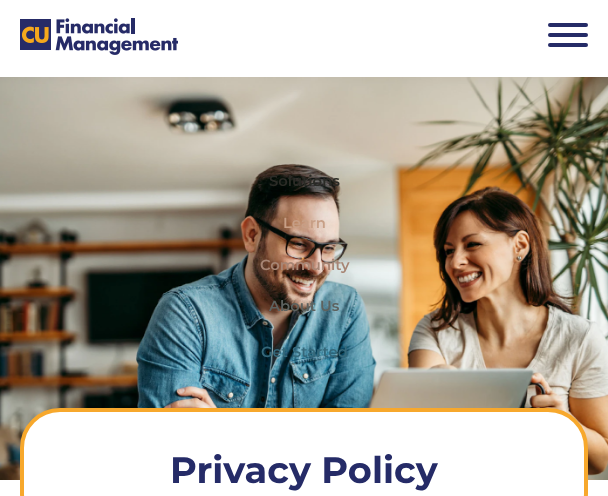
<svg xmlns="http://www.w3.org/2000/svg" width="608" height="496">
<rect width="100%" height="100%" fill="#fff"/>
<image x="20" y="18" width="158" height="37" href="media/1.png"/>
<rect x="548" y="33" width="40" height="4" rx="2" fill="#252b67"/>
<rect x="548" y="23" width="40" height="4" rx="2" fill="#252b67"/>
<rect x="548" y="43" width="40" height="4" rx="2" fill="#252b67"/>
<image x="0" y="77" width="608" height="403" href="media/2.png"/>
<text x="269" y="186" style="font-family:Montserrat;font-size:14.75px;font-weight:600;fill:#2b2b26">Solutions</text>
<text x="283" y="228" style="font-family:Montserrat;font-size:14.75px;font-weight:600;fill:#c79f86">Learn</text>
<text x="260" y="270" style="font-family:Montserrat;font-size:14.75px;font-weight:600;fill:#a78574">Community</text>
<text x="269" y="311" style="font-family:Montserrat;font-size:14.75px;font-weight:600;fill:#5d625f">About Us</text>
<text x="261" y="357" style="font-family:Montserrat;font-size:14.75px;font-weight:600;fill:#35687a">Get Started</text>
<rect x="22" y="410" width="564" height="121" rx="38" fill="#fff" stroke="#f7a82c" stroke-width="4"/>
<text x="170" y="483" style="font-family:Montserrat;font-size:36.75px;font-weight:bold;fill:#252b67">Privacy Policy</text>
</svg>
